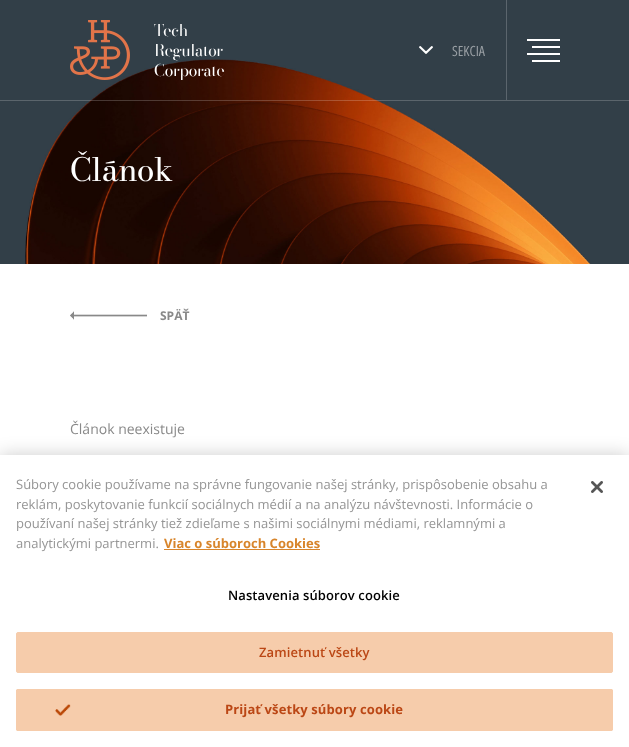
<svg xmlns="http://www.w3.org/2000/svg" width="629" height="747">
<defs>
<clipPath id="clip1"><rect x="154" y="20" width="70" height="60"/></clipPath>
</defs>
<rect width="100%" height="100%" fill="#fff"/>
<rect width="629" height="264" fill="#323f48"/>
<image x="25" y="59" width="566" height="205" href="media/1.png"/>
<image x="70" y="20" width="60" height="60" href="media/2.png"/>
<g clip-path="url(#clip1)">
<text x="154" y="36" style="font-family:'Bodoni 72';font-size:16px;fill:#fff">Tech</text>
</g>
<text x="154" y="56" style="font-family:'Bodoni 72';font-size:16px;fill:#fff">Regulator</text>
<text x="154" y="76" style="font-family:'Bodoni 72';font-size:16px;fill:#fff">Corporate</text>
<rect x="506" width="1" height="100" fill="#5b656d"/>
<rect x="527" y="39" width="33" height="2" fill="#fff"/>
<rect x="532" y="46" width="28" height="2" fill="#fff"/>
<rect x="527" y="53" width="33" height="2" fill="#fff"/>
<rect x="532" y="60" width="28" height="2" fill="#fff"/>
<image x="419" y="46" width="14" height="8" href="media/3.png"/>
<text x="452" y="56" style="font-family:Open Sans Condensed;font-size:14px;fill:#999fa4">SEKCIA</text>
<text x="70" y="181" style="font-family:'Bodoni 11';font-size:32px;fill:#fff">Článok</text>
<rect y="100" width="629" height="1" fill="#ffffff33"/>
<image x="70" y="311" width="77" height="9" href="media/4.png"/>
<text x="160" y="320" style="font-family:Open Sans;font-size:12px;font-weight:bold;fill:#898989">SPÄŤ</text>
<text x="70" y="434" style="font-family:Open Sans;font-size:14px;fill:#898989">Článok neexistuje</text>
<rect y="455" width="629" height="292" fill="#00000033" filter="blur(9px)"/>
<rect y="455" width="629" height="292" fill="#fff"/>
<text x="16" y="489" style="font-family:Open Sans;font-size:13px;fill:#959595">Súbory cookie používame na správne fungovanie našej stránky, prispôsobenie obsahu a</text>
<text x="16" y="509" style="font-family:Open Sans;font-size:13px;fill:#959595">reklám, poskytovanie funkcií sociálnych médií a na analýzu návštevnosti. Informácie o</text>
<text x="16" y="528" style="font-family:Open Sans;font-size:13px;fill:#959595">používaní našej stránky tiež zdieľame s našimi sociálnymi médiami, reklamnými a</text>
<text x="16" y="548" style="font-family:Open Sans;font-size:13px;fill:#959595">analytickými partnermi.</text>
<text x="164" y="548" style="font-family:Open Sans;font-size:13px;font-weight:bold;fill:#d8852b">Viac o súboroch Cookies</text>
<rect x="164" y="549" width="156" height="1" fill="#d8852b"/>
<text x="228" y="600" style="font-family:Open Sans;font-size:13px;font-weight:600;letter-spacing:0.1px;fill:#000">Nastavenia súborov cookie</text>
<rect x="16.5" y="632.5" width="596" height="40" rx="1.5" fill="#f6ccab" stroke="#f6ccab"/>
<text x="259" y="657" style="font-family:Open Sans;font-size:13px;font-weight:600;letter-spacing:0.1px;fill:#bb4715">Zamietnuť všetky</text>
<rect x="16" y="689" width="597" height="42" rx="2" fill="#f6ccab"/>
<image x="55" y="704" width="16" height="12" href="media/5.png"/>
<rect x="16.5" y="689.5" width="596" height="41" rx="1.5" fill="none" stroke="#f6ccab"/>
<text x="225" y="714" style="font-family:Open Sans;font-size:13px;font-weight:bold;letter-spacing:0.1px;fill:#bb4715">Prijať všetky súbory cookie</text>
<image x="591" y="481" width="12" height="12" href="media/6.png"/>
</svg>
